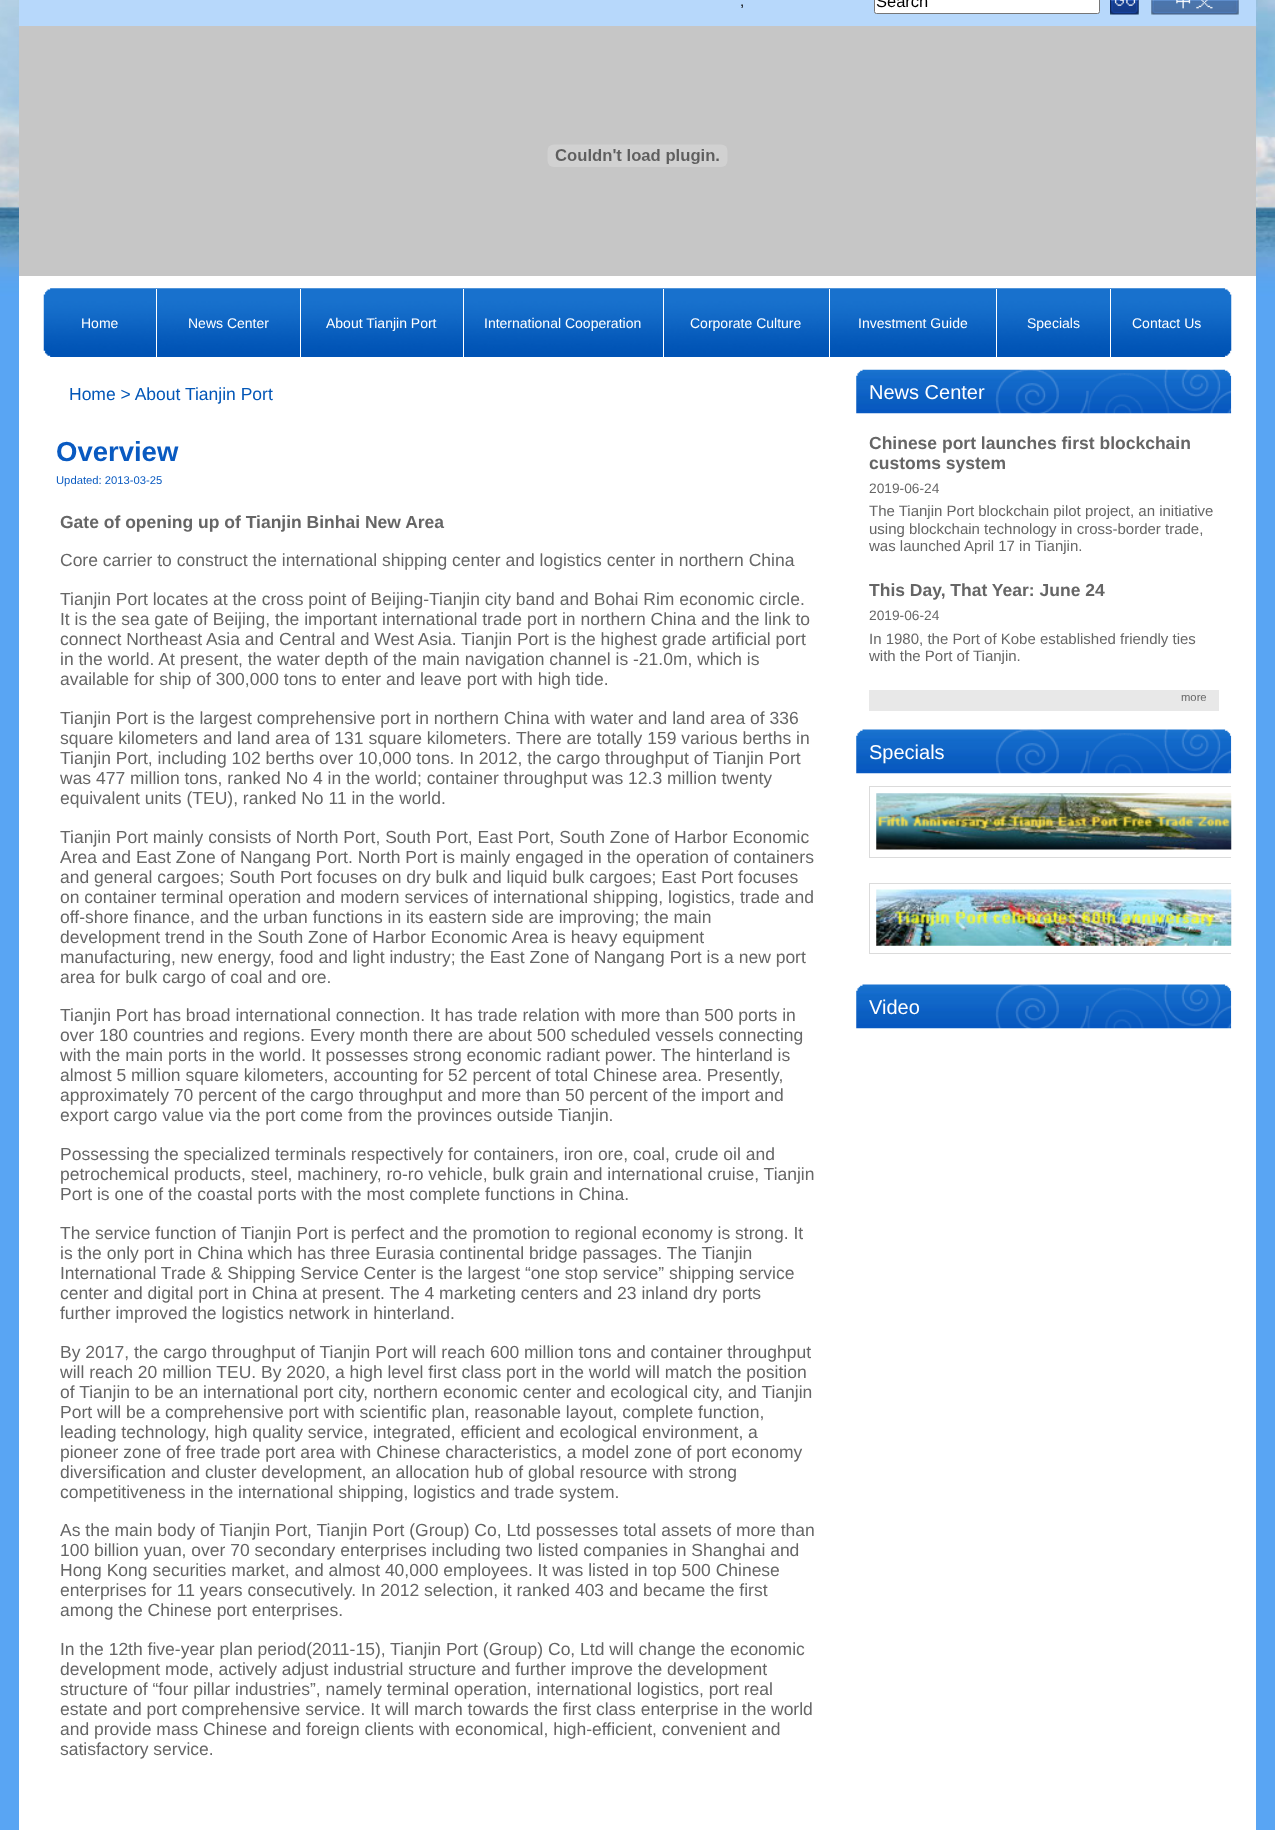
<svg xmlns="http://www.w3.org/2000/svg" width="1275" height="1830">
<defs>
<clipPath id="clip1"><rect x="44" y="370" width="1187" height="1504"/></clipPath>
</defs>
<rect width="100%" height="100%" fill="#59a5f3"/>
<image x="0" y="0" width="1275" height="296" href="media/1.png"/>
<rect x="19" width="1237" height="26" fill="#b7d8fb"/>
<text x="740" y="6" style="font-family:Liberation Sans;font-size:15px;fill:#000">,</text>
<rect x="874.5" y="-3.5" width="225" height="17" rx="2" fill="#fff" stroke="#767676"/>
<text x="876" y="7" style="font-family:Liberation Sans;font-size:16.5px;fill:#000">Search</text>
<image x="1110" y="0" width="29" height="15" href="media/2.png"/>
<image x="1151" y="0" width="88" height="15" href="media/3.png"/>
<rect x="19" y="26" width="1237" height="250" fill="#c6c6c6"/>
<image x="547" y="144" width="181" height="23" href="media/4.png"/>
<rect x="19" y="276" width="1237" height="1554" fill="#fff"/>
<image x="43" y="288" width="1189" height="69" href="media/5.png"/>
<rect x="156" y="289" width="1" height="69" fill="#fff"/>
<text x="81" y="328" style="font-family:Liberation Sans;font-size:14px;fill:#fff">Home</text>
<rect x="300" y="289" width="1" height="69" fill="#fff"/>
<text x="188" y="328" style="font-family:Liberation Sans;font-size:14px;fill:#fff">News Center</text>
<rect x="463" y="289" width="1" height="69" fill="#fff"/>
<text x="326" y="328" style="font-family:Liberation Sans;font-size:14px;fill:#fff">About Tianjin Port</text>
<rect x="663" y="289" width="1" height="69" fill="#fff"/>
<text x="484" y="328" style="font-family:Liberation Sans;font-size:14px;fill:#fff">International Cooperation</text>
<rect x="829" y="289" width="1" height="69" fill="#fff"/>
<text x="690" y="328" style="font-family:Liberation Sans;font-size:14px;fill:#fff">Corporate Culture</text>
<rect x="996" y="289" width="1" height="69" fill="#fff"/>
<text x="858" y="328" style="font-family:Liberation Sans;font-size:14px;fill:#fff">Investment Guide</text>
<rect x="1110" y="289" width="1" height="69" fill="#fff"/>
<text x="1027" y="328" style="font-family:Liberation Sans;font-size:14px;fill:#fff">Specials</text>
<text x="1132" y="328" style="font-family:Liberation Sans;font-size:14px;fill:#fff">Contact Us</text>
<text x="69" y="400" style="font-family:Liberation Sans;font-size:17.5px;fill:#0256b7">Home &gt; About Tianjin Port</text>
<text x="56" y="461" style="font-family:Liberation Sans;font-size:27.5px;font-weight:bold;fill:#095ac1">Overview</text>
<text x="56" y="484" style="font-family:Liberation Sans;font-size:11.25px;fill:#095ac1">Updated: 2013-03-25</text>
<text x="60" y="528" style="font-family:Liberation Sans;font-size:17.5px;font-weight:bold;fill:#666">Gate of opening up of Tianjin Binhai New Area</text>
<text x="60" y="566" style="font-family:Liberation Sans;font-size:17.5px;fill:#666">Core carrier to construct the international shipping center and logistics center in northern China</text>
<text x="60" y="605" style="font-family:Liberation Sans;font-size:17.5px;fill:#666">Tianjin Port locates at the cross point of Beijing-Tianjin city band and Bohai Rim economic circle.</text>
<text x="60" y="625" style="font-family:Liberation Sans;font-size:17.5px;fill:#666">It is the sea gate of Beijing, the important international trade port in northern China and the link to</text>
<text x="60" y="645" style="font-family:Liberation Sans;font-size:17.5px;fill:#666">connect Northeast Asia and Central and West Asia. Tianjin Port is the highest grade artificial port</text>
<text x="60" y="665" style="font-family:Liberation Sans;font-size:17.5px;fill:#666">in the world. At present, the water depth of the main navigation channel is -21.0m, which is</text>
<text x="60" y="685" style="font-family:Liberation Sans;font-size:17.5px;fill:#666">available for ship of 300,000 tons to enter and leave port with high tide.</text>
<text x="60" y="724" style="font-family:Liberation Sans;font-size:17.5px;fill:#666">Tianjin Port is the largest comprehensive port in northern China with water and land area of 336</text>
<text x="60" y="744" style="font-family:Liberation Sans;font-size:17.5px;fill:#666">square kilometers and land area of 131 square kilometers. There are totally 159 various berths in</text>
<text x="60" y="764" style="font-family:Liberation Sans;font-size:17.5px;fill:#666">Tianjin Port, including 102 berths over 10,000 tons. In 2012, the cargo throughput of Tianjin Port</text>
<text x="60" y="784" style="font-family:Liberation Sans;font-size:17.5px;fill:#666">was 477 million tons, ranked No 4 in the world; container throughput was 12.3 million twenty</text>
<text x="60" y="804" style="font-family:Liberation Sans;font-size:17.5px;fill:#666">equivalent units (TEU), ranked No 11 in the world.</text>
<text x="60" y="843" style="font-family:Liberation Sans;font-size:17.5px;fill:#666">Tianjin Port mainly consists of North Port, South Port, East Port, South Zone of Harbor Economic</text>
<text x="60" y="863" style="font-family:Liberation Sans;font-size:17.5px;fill:#666">Area and East Zone of Nangang Port. North Port is mainly engaged in the operation of containers</text>
<text x="60" y="883" style="font-family:Liberation Sans;font-size:17.5px;fill:#666">and general cargoes; South Port focuses on dry bulk and liquid bulk cargoes; East Port focuses</text>
<text x="60" y="903" style="font-family:Liberation Sans;font-size:17.5px;fill:#666">on container terminal operation and modern services of international shipping, logistics, trade and</text>
<text x="60" y="923" style="font-family:Liberation Sans;font-size:17.5px;fill:#666">off-shore finance, and the urban functions in its eastern side are improving; the main</text>
<text x="60" y="943" style="font-family:Liberation Sans;font-size:17.5px;fill:#666">development trend in the South Zone of Harbor Economic Area is heavy equipment</text>
<text x="60" y="963" style="font-family:Liberation Sans;font-size:17.5px;fill:#666">manufacturing, new energy, food and light industry; the East Zone of Nangang Port is a new port</text>
<text x="60" y="983" style="font-family:Liberation Sans;font-size:17.5px;fill:#666">area for bulk cargo of coal and ore.</text>
<text x="60" y="1021" style="font-family:Liberation Sans;font-size:17.5px;fill:#666">Tianjin Port has broad international connection. It has trade relation with more than 500 ports in</text>
<text x="60" y="1041" style="font-family:Liberation Sans;font-size:17.5px;fill:#666">over 180 countries and regions. Every month there are about 500 scheduled vessels connecting</text>
<text x="60" y="1061" style="font-family:Liberation Sans;font-size:17.5px;fill:#666">with the main ports in the world. It possesses strong economic radiant power. The hinterland is</text>
<text x="60" y="1081" style="font-family:Liberation Sans;font-size:17.5px;fill:#666">almost 5 million square kilometers, accounting for 52 percent of total Chinese area. Presently,</text>
<text x="60" y="1101" style="font-family:Liberation Sans;font-size:17.5px;fill:#666">approximately 70 percent of the cargo throughput and more than 50 percent of the import and</text>
<text x="60" y="1121" style="font-family:Liberation Sans;font-size:17.5px;fill:#666">export cargo value via the port come from the provinces outside Tianjin.</text>
<text x="60" y="1160" style="font-family:Liberation Sans;font-size:17.5px;fill:#666">Possessing the specialized terminals respectively for containers, iron ore, coal, crude oil and</text>
<text x="60" y="1180" style="font-family:Liberation Sans;font-size:17.5px;fill:#666">petrochemical products, steel, machinery, ro-ro vehicle, bulk grain and international cruise, Tianjin</text>
<text x="60" y="1200" style="font-family:Liberation Sans;font-size:17.5px;fill:#666">Port is one of the coastal ports with the most complete functions in China.</text>
<text x="60" y="1239" style="font-family:Liberation Sans;font-size:17.5px;fill:#666">The service function of Tianjin Port is perfect and the promotion to regional economy is strong. It</text>
<text x="60" y="1259" style="font-family:Liberation Sans;font-size:17.5px;fill:#666">is the only port in China which has three Eurasia continental bridge passages. The Tianjin</text>
<text x="60" y="1279" style="font-family:Liberation Sans;font-size:17.5px;fill:#666">International Trade &amp; Shipping Service Center is the largest “one stop service” shipping service</text>
<text x="60" y="1299" style="font-family:Liberation Sans;font-size:17.5px;fill:#666">center and digital port in China at present. The 4 marketing centers and 23 inland dry ports</text>
<text x="60" y="1319" style="font-family:Liberation Sans;font-size:17.5px;fill:#666">further improved the logistics network in hinterland.</text>
<text x="60" y="1358" style="font-family:Liberation Sans;font-size:17.5px;fill:#666">By 2017, the cargo throughput of Tianjin Port will reach 600 million tons and container throughput</text>
<text x="60" y="1378" style="font-family:Liberation Sans;font-size:17.5px;fill:#666">will reach 20 million TEU. By 2020, a high level first class port in the world will match the position</text>
<text x="60" y="1398" style="font-family:Liberation Sans;font-size:17.5px;fill:#666">of Tianjin to be an international port city, northern economic center and ecological city, and Tianjin</text>
<text x="60" y="1418" style="font-family:Liberation Sans;font-size:17.5px;fill:#666">Port will be a comprehensive port with scientific plan, reasonable layout, complete function,</text>
<text x="60" y="1438" style="font-family:Liberation Sans;font-size:17.5px;fill:#666">leading technology, high quality service, integrated, efficient and ecological environment, a</text>
<text x="60" y="1458" style="font-family:Liberation Sans;font-size:17.5px;fill:#666">pioneer zone of free trade port area with Chinese characteristics, a model zone of port economy</text>
<text x="60" y="1478" style="font-family:Liberation Sans;font-size:17.5px;fill:#666">diversification and cluster development, an allocation hub of global resource with strong</text>
<text x="60" y="1498" style="font-family:Liberation Sans;font-size:17.5px;fill:#666">competitiveness in the international shipping, logistics and trade system.</text>
<text x="60" y="1536" style="font-family:Liberation Sans;font-size:17.5px;fill:#666">As the main body of Tianjin Port, Tianjin Port (Group) Co, Ltd possesses total assets of more than</text>
<text x="60" y="1556" style="font-family:Liberation Sans;font-size:17.5px;fill:#666">100 billion yuan, over 70 secondary enterprises including two listed companies in Shanghai and</text>
<text x="60" y="1576" style="font-family:Liberation Sans;font-size:17.5px;fill:#666">Hong Kong securities market, and almost 40,000 employees. It was listed in top 500 Chinese</text>
<text x="60" y="1596" style="font-family:Liberation Sans;font-size:17.5px;fill:#666">enterprises for 11 years consecutively. In 2012 selection, it ranked 403 and became the first</text>
<text x="60" y="1616" style="font-family:Liberation Sans;font-size:17.5px;fill:#666">among the Chinese port enterprises.</text>
<text x="60" y="1655" style="font-family:Liberation Sans;font-size:17.5px;fill:#666">In the 12th five-year plan period(2011-15), Tianjin Port (Group) Co, Ltd will change the economic</text>
<text x="60" y="1675" style="font-family:Liberation Sans;font-size:17.5px;fill:#666">development mode, actively adjust industrial structure and further improve the development</text>
<text x="60" y="1695" style="font-family:Liberation Sans;font-size:17.5px;fill:#666">structure of “four pillar industries”, namely terminal operation, international logistics, port real</text>
<text x="60" y="1715" style="font-family:Liberation Sans;font-size:17.5px;fill:#666">estate and port comprehensive service. It will march towards the first class enterprise in the world</text>
<text x="60" y="1735" style="font-family:Liberation Sans;font-size:17.5px;fill:#666">and provide mass Chinese and foreign clients with economical, high-efficient, convenient and</text>
<text x="60" y="1755" style="font-family:Liberation Sans;font-size:17.5px;fill:#666">satisfactory service.</text>
<image x="856" y="369" width="376" height="45" href="media/6.png"/>
<text x="869" y="399" style="font-family:Liberation Sans;font-size:20px;fill:#fff">News Center</text>
<text x="869" y="449" style="font-family:Liberation Sans;font-size:17.5px;font-weight:bold;fill:#666">Chinese port launches first blockchain</text>
<text x="869" y="469" style="font-family:Liberation Sans;font-size:17.5px;font-weight:bold;fill:#666">customs system</text>
<text x="869" y="493" style="font-family:Liberation Sans;font-size:13.75px;fill:#666">2019-06-24</text>
<text x="869" y="516" style="font-family:Liberation Sans;font-size:15px;fill:#666">The Tianjin Port blockchain pilot project, an initiative</text>
<text x="869" y="534" style="font-family:Liberation Sans;font-size:15px;fill:#666">using blockchain technology in cross-border trade,</text>
<text x="869" y="551" style="font-family:Liberation Sans;font-size:15px;fill:#666">was launched April 17 in Tianjin.</text>
<text x="869" y="596" style="font-family:Liberation Sans;font-size:17.5px;font-weight:bold;fill:#666">This Day, That Year: June 24</text>
<text x="869" y="620" style="font-family:Liberation Sans;font-size:13.75px;fill:#666">2019-06-24</text>
<text x="869" y="644" style="font-family:Liberation Sans;font-size:15px;fill:#666">In 1980, the Port of Kobe established friendly ties</text>
<text x="869" y="661" style="font-family:Liberation Sans;font-size:15px;fill:#666">with the Port of Tianjin.</text>
<rect x="869" y="690" width="350" height="21" fill="#e8e8e8"/>
<text x="1181" y="701" style="font-family:Liberation Sans;font-size:11.25px;fill:#666">more</text>
<image x="856" y="729" width="376" height="45" href="media/7.png"/>
<text x="869" y="759" style="font-family:Liberation Sans;font-size:20px;fill:#fff">Specials</text>
<g clip-path="url(#clip1)">
<rect x="869.5" y="786.5" width="373" height="71" fill="none" stroke="#dbdbdb"/>
</g>
<image x="876" y="793" width="356" height="57" href="media/8.png"/>
<g clip-path="url(#clip1)">
<rect x="869.5" y="883.5" width="373" height="70" fill="none" stroke="#dbdbdb"/>
</g>
<image x="876" y="889" width="356" height="57" href="media/9.png"/>
<image x="856" y="984" width="376" height="45" href="media/7.png"/>
<text x="869" y="1014" style="font-family:Liberation Sans;font-size:20px;fill:#fff">Video</text>
</svg>
